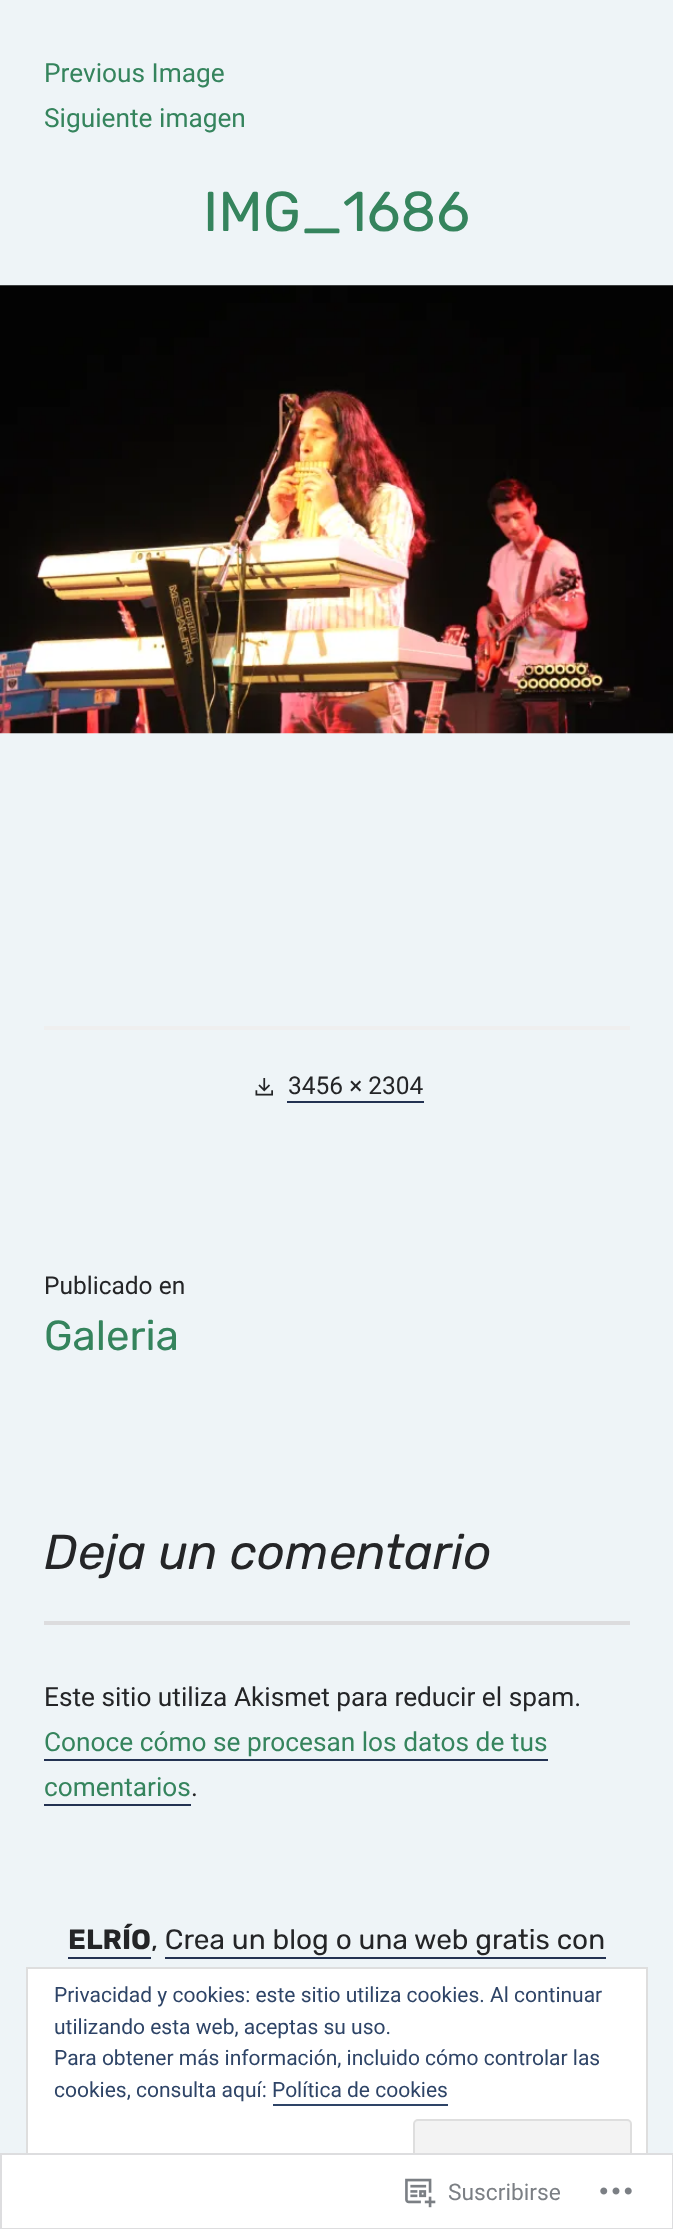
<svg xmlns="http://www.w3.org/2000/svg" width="673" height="2229">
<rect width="100%" height="100%" fill="#eef4f7"/>
<text x="44" y="82" style="font-family:Roboto;font-size:26.25px;fill:#35845d">Previous Image</text>
<text x="44" y="127" style="font-family:Roboto;font-size:26.25px;fill:#35845d">Siguiente imagen</text>
<text x="203" y="231" style="font-family:Rubik;font-size:56px;fill:#35845d">IMG_1686</text>
<image x="0" y="285" width="673" height="449" href="media/1.png"/>
<rect x="44" y="1026" width="586" height="4" fill="#efefef"/>
<image x="255" y="1078" width="18" height="18" href="media/2.png"/>
<text x="288" y="1094" style="font-family:Roboto;font-size:24.5px;fill:#242527">3456 × 2304</text>
<rect x="287" y="1101" width="137" height="2" fill="#233252"/>
<text x="44" y="1294" style="font-family:Roboto;font-size:24.5px;fill:#242527">Publicado en</text>
<text x="44" y="1350" style="font-family:Rubik;font-size:42px;fill:#35845d">Galeria</text>
<text x="44" y="1569" style="font-family:Rubik;font-size:49px;font-style:italic;fill:#242527">Deja un comentario</text>
<rect x="44" y="1621" width="586" height="4" fill="#dcdcde"/>
<text x="44" y="1706" style="font-family:Roboto;font-size:26.25px;fill:#242527">Este sitio utiliza Akismet para reducir el spam.</text>
<text x="44" y="1751" style="font-family:Roboto;font-size:26.25px;fill:#35845d">Conoce cómo se procesan los datos de tus</text>
<rect x="44" y="1759" width="504" height="2" fill="#233252"/>
<text x="44" y="1796" style="font-family:Roboto;font-size:26.25px;fill:#35845d">comentarios</text>
<rect x="44" y="1804" width="147" height="2" fill="#233252"/>
<text x="191" y="1796" style="font-family:Roboto;font-size:26.25px;fill:#242527">.</text>
<text x="68" y="1949" style="font-family:Rubik;font-size:28px;font-weight:bold;fill:#242527">ELRÍO</text>
<rect x="68" y="1957" width="83" height="2" fill="#233252"/>
<text x="151" y="1949" style="font-family:Rubik;font-size:28px;fill:#242527">, Crea un blog o una web gratis con</text>
<rect x="165" y="1957" width="441" height="2" fill="#233252"/>
<rect x="27" y="1968" width="620" height="234" fill="#fff" stroke="#dedede" stroke-width="2"/>
<text x="54" y="2002" style="font-family:Roboto;font-size:21px;fill:#2e4467">Privacidad y cookies: este sitio utiliza cookies. Al continuar</text>
<text x="54" y="2034" style="font-family:Roboto;font-size:21px;fill:#2e4467">utilizando esta web, aceptas su uso.</text>
<text x="54" y="2065" style="font-family:Roboto;font-size:21px;fill:#2e4467">Para obtener más información, incluido cómo controlar las</text>
<text x="54" y="2097" style="font-family:Roboto;font-size:21px;fill:#2e4467">cookies, consulta aquí: Política de cookies</text>
<rect x="273" y="2104" width="175" height="2" fill="#2e4467"/>
<rect x="414" y="2120" width="217" height="67" rx="4" fill="#f3f3f3" stroke="#dedede" stroke-width="2"/>
<rect y="2153" width="673" height="76" fill="#fffffffa"/>
<rect x="1" y="2154" width="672" height="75" fill="none" stroke="#dcdcdefa" stroke-width="2"/>
<image x="405" y="2178" width="31" height="30" href="media/3.png"/>
<text x="448" y="2200" style="font-family:Roboto;font-size:22.75px;fill:#7b7f84">Suscribirse</text>
<image x="600" y="2187" width="32" height="8" href="media/4.png"/>
</svg>
